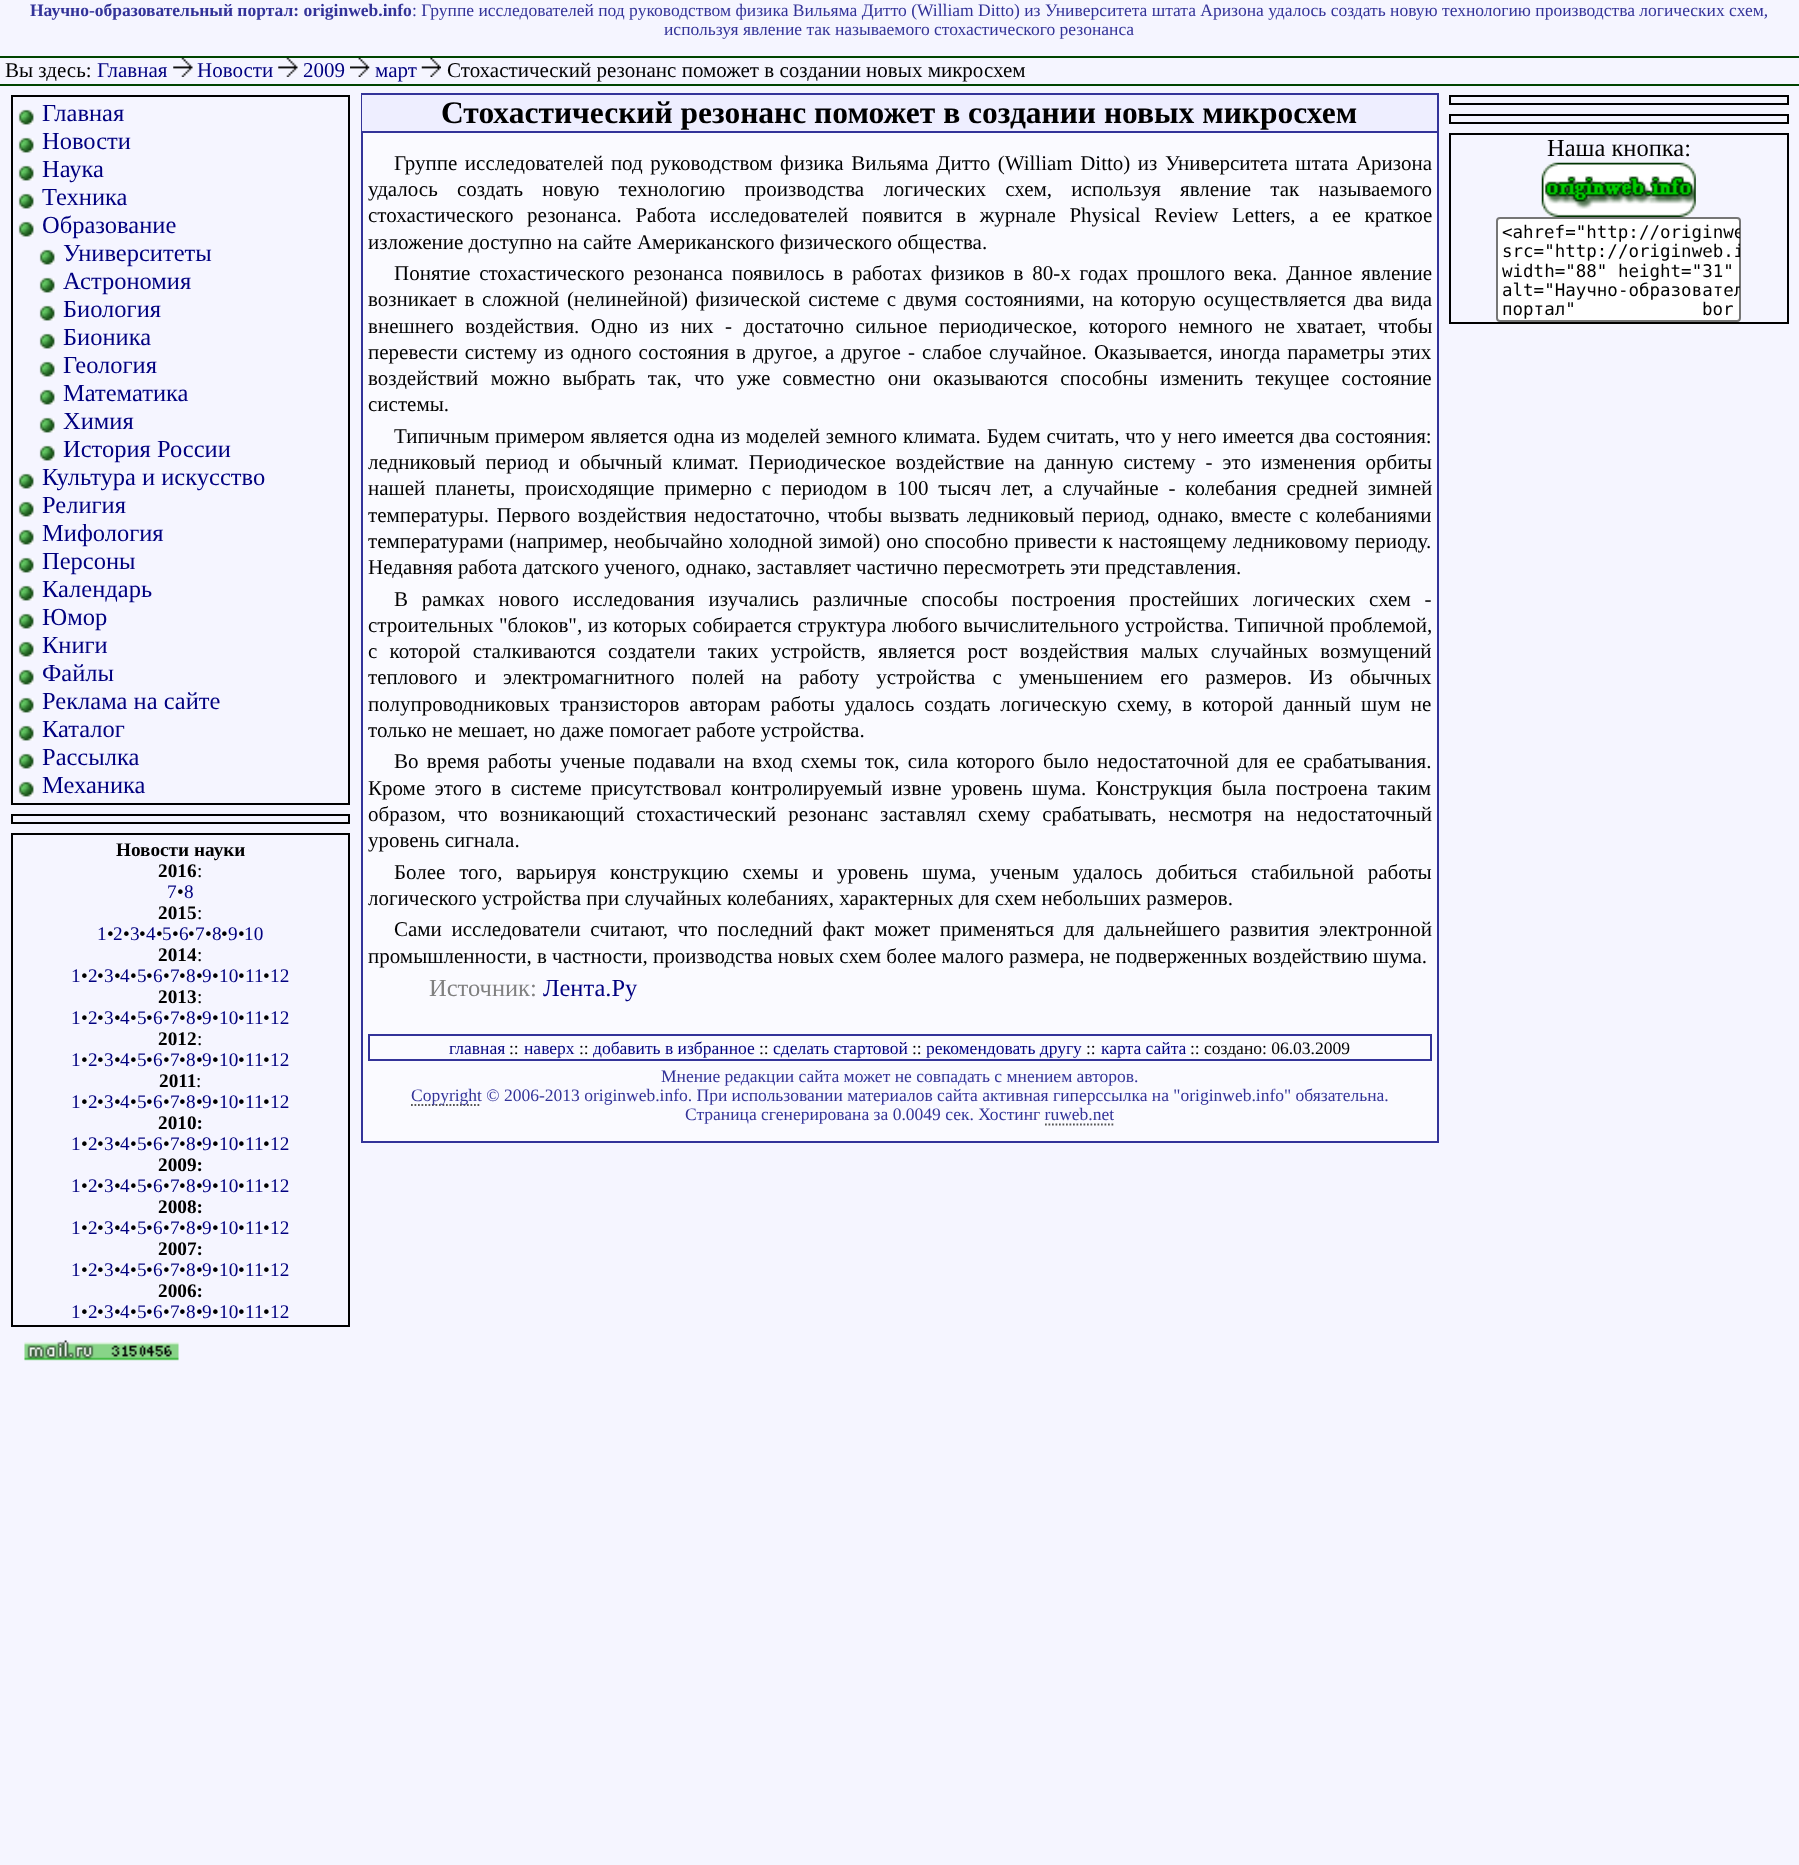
<svg xmlns="http://www.w3.org/2000/svg" width="1799" height="1865">
<defs>
<clipPath id="clip1"><rect x="1498" y="219" width="242" height="101"/></clipPath>
</defs>
<rect width="100%" height="100%" fill="#f5f5ff"/>
<text x="30" y="16" style="font-family:Liberation Serif;font-size:17.5px;font-weight:bold;fill:#339">Научно-образовательный портал: originweb.info</text>
<text x="412" y="16" style="font-family:Liberation Serif;font-size:17.5px;fill:#339">: Группе исследователей под руководством физика Вильяма Дитто (William Ditto) из Университета штата Аризона удалось создать новую технологию производства логических схем,</text>
<text x="664" y="35" style="font-family:Liberation Serif;font-size:17.5px;fill:#339">используя явление так называемого стохастического резонанса</text>
<rect y="56" width="1799" height="2" fill="#040"/>
<rect y="84" width="1799" height="2" fill="#040"/>
<text x="5" y="77" style="font-family:Liberation Serif;font-size:21px;fill:#000">Вы здесь:</text>
<text x="97" y="77" style="font-family:Liberation Serif;font-size:21px;fill:#000080">Главная</text>
<image x="173" y="57" width="20" height="20" href="media/1.png"/>
<text x="197" y="77" style="font-family:Liberation Serif;font-size:21px;fill:#000080">Новости</text>
<image x="278" y="57" width="20" height="20" href="media/2.png"/>
<text x="303" y="77" style="font-family:Liberation Serif;font-size:21px;fill:#000080">2009</text>
<image x="350" y="57" width="20" height="20" href="media/3.png"/>
<text x="375" y="77" style="font-family:Liberation Serif;font-size:21px;fill:#000080">март</text>
<image x="421" y="57" width="20" height="20" href="media/4.png"/>
<text x="447" y="77" style="font-family:Liberation Serif;font-size:21px;fill:#000">Стохастический резонанс поможет в создании новых микросхем</text>
<rect x="12" y="96" width="337" height="708" fill="none" stroke="#000" stroke-width="2"/>
<image x="18" y="109" width="16" height="16" href="media/5.png"/>
<text x="42" y="121" style="font-family:Liberation Serif;font-size:24.5px;fill:#000080">Главная</text>
<image x="18" y="137" width="16" height="16" href="media/6.png"/>
<text x="42" y="149" style="font-family:Liberation Serif;font-size:24.5px;fill:#000080">Новости</text>
<image x="18" y="165" width="16" height="16" href="media/6.png"/>
<text x="42" y="177" style="font-family:Liberation Serif;font-size:24.5px;fill:#000080">Наука</text>
<image x="18" y="193" width="16" height="16" href="media/6.png"/>
<text x="42" y="205" style="font-family:Liberation Serif;font-size:24.5px;fill:#000080">Техника</text>
<image x="18" y="221" width="16" height="16" href="media/5.png"/>
<text x="42" y="233" style="font-family:Liberation Serif;font-size:24.5px;fill:#000080">Образование</text>
<image x="39" y="249" width="16" height="16" href="media/6.png"/>
<text x="63" y="261" style="font-family:Liberation Serif;font-size:24.5px;fill:#000080">Университеты</text>
<image x="39" y="277" width="16" height="16" href="media/6.png"/>
<text x="63" y="289" style="font-family:Liberation Serif;font-size:24.5px;fill:#000080">Астрономия</text>
<image x="39" y="305" width="16" height="16" href="media/6.png"/>
<text x="63" y="317" style="font-family:Liberation Serif;font-size:24.5px;fill:#000080">Биология</text>
<image x="39" y="333" width="16" height="16" href="media/6.png"/>
<text x="63" y="345" style="font-family:Liberation Serif;font-size:24.5px;fill:#000080">Бионика</text>
<image x="39" y="361" width="16" height="16" href="media/6.png"/>
<text x="63" y="373" style="font-family:Liberation Serif;font-size:24.5px;fill:#000080">Геология</text>
<image x="39" y="389" width="16" height="16" href="media/6.png"/>
<text x="63" y="401" style="font-family:Liberation Serif;font-size:24.5px;fill:#000080">Математика</text>
<image x="39" y="417" width="16" height="16" href="media/6.png"/>
<text x="63" y="429" style="font-family:Liberation Serif;font-size:24.5px;fill:#000080">Химия</text>
<image x="39" y="445" width="16" height="16" href="media/6.png"/>
<text x="63" y="457" style="font-family:Liberation Serif;font-size:24.5px;fill:#000080">История России</text>
<image x="18" y="473" width="16" height="16" href="media/6.png"/>
<text x="42" y="485" style="font-family:Liberation Serif;font-size:24.5px;fill:#000080">Культура и искусство</text>
<image x="18" y="501" width="16" height="16" href="media/6.png"/>
<text x="42" y="513" style="font-family:Liberation Serif;font-size:24.5px;fill:#000080">Религия</text>
<image x="18" y="529" width="16" height="16" href="media/6.png"/>
<text x="42" y="541" style="font-family:Liberation Serif;font-size:24.5px;fill:#000080">Мифология</text>
<image x="18" y="557" width="16" height="16" href="media/6.png"/>
<text x="42" y="569" style="font-family:Liberation Serif;font-size:24.5px;fill:#000080">Персоны</text>
<image x="18" y="585" width="16" height="16" href="media/6.png"/>
<text x="42" y="597" style="font-family:Liberation Serif;font-size:24.5px;fill:#000080">Календарь</text>
<image x="18" y="613" width="16" height="16" href="media/6.png"/>
<text x="42" y="625" style="font-family:Liberation Serif;font-size:24.5px;fill:#000080">Юмор</text>
<image x="18" y="641" width="16" height="16" href="media/6.png"/>
<text x="42" y="653" style="font-family:Liberation Serif;font-size:24.5px;fill:#000080">Книги</text>
<image x="18" y="669" width="16" height="16" href="media/6.png"/>
<text x="42" y="681" style="font-family:Liberation Serif;font-size:24.5px;fill:#000080">Файлы</text>
<image x="18" y="697" width="16" height="16" href="media/6.png"/>
<text x="42" y="709" style="font-family:Liberation Serif;font-size:24.5px;fill:#000080">Реклама на сайте</text>
<image x="18" y="725" width="16" height="16" href="media/6.png"/>
<text x="42" y="737" style="font-family:Liberation Serif;font-size:24.5px;fill:#000080">Каталог</text>
<image x="18" y="753" width="16" height="16" href="media/6.png"/>
<text x="42" y="765" style="font-family:Liberation Serif;font-size:24.5px;fill:#000080">Рассылка</text>
<image x="18" y="781" width="16" height="16" href="media/6.png"/>
<text x="42" y="793" style="font-family:Liberation Serif;font-size:24.5px;fill:#000080">Механика</text>
<rect x="12" y="815" width="337" height="8" fill="none" stroke="#000" stroke-width="2"/>
<rect x="12" y="834" width="337" height="492" fill="none" stroke="#000" stroke-width="2"/>
<text x="116" y="856" style="font-family:Liberation Serif;font-size:19.25px;font-weight:bold;fill:#000">Новости науки</text>
<text x="158" y="877" style="font-family:Liberation Serif;font-size:19.25px;font-weight:bold;fill:#000">2016</text>
<text x="197" y="877" style="font-family:Liberation Serif;font-size:19.25px;fill:#000">:</text>
<text x="167" y="898" style="font-family:Liberation Serif;font-size:19.25px;fill:#000080">7</text>
<text x="177" y="898" style="font-family:Liberation Serif;font-size:19.25px;fill:#000">•</text>
<text x="184" y="898" style="font-family:Liberation Serif;font-size:19.25px;fill:#000080">8</text>
<text x="158" y="919" style="font-family:Liberation Serif;font-size:19.25px;font-weight:bold;fill:#000">2015</text>
<text x="197" y="919" style="font-family:Liberation Serif;font-size:19.25px;fill:#000">:</text>
<text x="97" y="940" style="font-family:Liberation Serif;font-size:19.25px;fill:#000080">1</text>
<text x="107" y="940" style="font-family:Liberation Serif;font-size:19.25px;fill:#000">•</text>
<text x="113" y="940" style="font-family:Liberation Serif;font-size:19.25px;fill:#000080">2</text>
<text x="123" y="940" style="font-family:Liberation Serif;font-size:19.25px;fill:#000">•</text>
<text x="130" y="940" style="font-family:Liberation Serif;font-size:19.25px;fill:#000080">3</text>
<text x="139" y="940" style="font-family:Liberation Serif;font-size:19.25px;fill:#000">•</text>
<text x="146" y="940" style="font-family:Liberation Serif;font-size:19.25px;fill:#000080">4</text>
<text x="156" y="940" style="font-family:Liberation Serif;font-size:19.25px;fill:#000">•</text>
<text x="162" y="940" style="font-family:Liberation Serif;font-size:19.25px;fill:#000080">5</text>
<text x="172" y="940" style="font-family:Liberation Serif;font-size:19.25px;fill:#000">•</text>
<text x="179" y="940" style="font-family:Liberation Serif;font-size:19.25px;fill:#000080">6</text>
<text x="188" y="940" style="font-family:Liberation Serif;font-size:19.25px;fill:#000">•</text>
<text x="195" y="940" style="font-family:Liberation Serif;font-size:19.25px;fill:#000080">7</text>
<text x="205" y="940" style="font-family:Liberation Serif;font-size:19.25px;fill:#000">•</text>
<text x="212" y="940" style="font-family:Liberation Serif;font-size:19.25px;fill:#000080">8</text>
<text x="221" y="940" style="font-family:Liberation Serif;font-size:19.25px;fill:#000">•</text>
<text x="228" y="940" style="font-family:Liberation Serif;font-size:19.25px;fill:#000080">9</text>
<text x="238" y="940" style="font-family:Liberation Serif;font-size:19.25px;fill:#000">•</text>
<text x="244" y="940" style="font-family:Liberation Serif;font-size:19.25px;fill:#000080">10</text>
<text x="158" y="961" style="font-family:Liberation Serif;font-size:19.25px;font-weight:bold;fill:#000">2014</text>
<text x="197" y="961" style="font-family:Liberation Serif;font-size:19.25px;fill:#000">:</text>
<text x="71" y="982" style="font-family:Liberation Serif;font-size:19.25px;fill:#000080">1</text>
<text x="81" y="982" style="font-family:Liberation Serif;font-size:19.25px;fill:#000">•</text>
<text x="88" y="982" style="font-family:Liberation Serif;font-size:19.25px;fill:#000080">2</text>
<text x="97" y="982" style="font-family:Liberation Serif;font-size:19.25px;fill:#000">•</text>
<text x="104" y="982" style="font-family:Liberation Serif;font-size:19.25px;fill:#000080">3</text>
<text x="114" y="982" style="font-family:Liberation Serif;font-size:19.25px;fill:#000">•</text>
<text x="120" y="982" style="font-family:Liberation Serif;font-size:19.25px;fill:#000080">4</text>
<text x="130" y="982" style="font-family:Liberation Serif;font-size:19.25px;fill:#000">•</text>
<text x="137" y="982" style="font-family:Liberation Serif;font-size:19.25px;fill:#000080">5</text>
<text x="146" y="982" style="font-family:Liberation Serif;font-size:19.25px;fill:#000">•</text>
<text x="153" y="982" style="font-family:Liberation Serif;font-size:19.25px;fill:#000080">6</text>
<text x="163" y="982" style="font-family:Liberation Serif;font-size:19.25px;fill:#000">•</text>
<text x="170" y="982" style="font-family:Liberation Serif;font-size:19.25px;fill:#000080">7</text>
<text x="179" y="982" style="font-family:Liberation Serif;font-size:19.25px;fill:#000">•</text>
<text x="186" y="982" style="font-family:Liberation Serif;font-size:19.25px;fill:#000080">8</text>
<text x="196" y="982" style="font-family:Liberation Serif;font-size:19.25px;fill:#000">•</text>
<text x="202" y="982" style="font-family:Liberation Serif;font-size:19.25px;fill:#000080">9</text>
<text x="212" y="982" style="font-family:Liberation Serif;font-size:19.25px;fill:#000">•</text>
<text x="219" y="982" style="font-family:Liberation Serif;font-size:19.25px;fill:#000080">10</text>
<text x="238" y="982" style="font-family:Liberation Serif;font-size:19.25px;fill:#000">•</text>
<text x="245" y="982" style="font-family:Liberation Serif;font-size:19.25px;fill:#000080">11</text>
<text x="263" y="982" style="font-family:Liberation Serif;font-size:19.25px;fill:#000">•</text>
<text x="270" y="982" style="font-family:Liberation Serif;font-size:19.25px;fill:#000080">12</text>
<text x="158" y="1003" style="font-family:Liberation Serif;font-size:19.25px;font-weight:bold;fill:#000">2013</text>
<text x="197" y="1003" style="font-family:Liberation Serif;font-size:19.25px;fill:#000">:</text>
<text x="71" y="1024" style="font-family:Liberation Serif;font-size:19.25px;fill:#000080">1</text>
<text x="81" y="1024" style="font-family:Liberation Serif;font-size:19.25px;fill:#000">•</text>
<text x="88" y="1024" style="font-family:Liberation Serif;font-size:19.25px;fill:#000080">2</text>
<text x="97" y="1024" style="font-family:Liberation Serif;font-size:19.25px;fill:#000">•</text>
<text x="104" y="1024" style="font-family:Liberation Serif;font-size:19.25px;fill:#000080">3</text>
<text x="114" y="1024" style="font-family:Liberation Serif;font-size:19.25px;fill:#000">•</text>
<text x="120" y="1024" style="font-family:Liberation Serif;font-size:19.25px;fill:#000080">4</text>
<text x="130" y="1024" style="font-family:Liberation Serif;font-size:19.25px;fill:#000">•</text>
<text x="137" y="1024" style="font-family:Liberation Serif;font-size:19.25px;fill:#000080">5</text>
<text x="146" y="1024" style="font-family:Liberation Serif;font-size:19.25px;fill:#000">•</text>
<text x="153" y="1024" style="font-family:Liberation Serif;font-size:19.25px;fill:#000080">6</text>
<text x="163" y="1024" style="font-family:Liberation Serif;font-size:19.25px;fill:#000">•</text>
<text x="170" y="1024" style="font-family:Liberation Serif;font-size:19.25px;fill:#000080">7</text>
<text x="179" y="1024" style="font-family:Liberation Serif;font-size:19.25px;fill:#000">•</text>
<text x="186" y="1024" style="font-family:Liberation Serif;font-size:19.25px;fill:#000080">8</text>
<text x="196" y="1024" style="font-family:Liberation Serif;font-size:19.25px;fill:#000">•</text>
<text x="202" y="1024" style="font-family:Liberation Serif;font-size:19.25px;fill:#000080">9</text>
<text x="212" y="1024" style="font-family:Liberation Serif;font-size:19.25px;fill:#000">•</text>
<text x="219" y="1024" style="font-family:Liberation Serif;font-size:19.25px;fill:#000080">10</text>
<text x="238" y="1024" style="font-family:Liberation Serif;font-size:19.25px;fill:#000">•</text>
<text x="245" y="1024" style="font-family:Liberation Serif;font-size:19.25px;fill:#000080">11</text>
<text x="263" y="1024" style="font-family:Liberation Serif;font-size:19.25px;fill:#000">•</text>
<text x="270" y="1024" style="font-family:Liberation Serif;font-size:19.25px;fill:#000080">12</text>
<text x="158" y="1045" style="font-family:Liberation Serif;font-size:19.25px;font-weight:bold;fill:#000">2012</text>
<text x="197" y="1045" style="font-family:Liberation Serif;font-size:19.25px;fill:#000">:</text>
<text x="71" y="1066" style="font-family:Liberation Serif;font-size:19.25px;fill:#000080">1</text>
<text x="81" y="1066" style="font-family:Liberation Serif;font-size:19.25px;fill:#000">•</text>
<text x="88" y="1066" style="font-family:Liberation Serif;font-size:19.25px;fill:#000080">2</text>
<text x="97" y="1066" style="font-family:Liberation Serif;font-size:19.25px;fill:#000">•</text>
<text x="104" y="1066" style="font-family:Liberation Serif;font-size:19.25px;fill:#000080">3</text>
<text x="114" y="1066" style="font-family:Liberation Serif;font-size:19.25px;fill:#000">•</text>
<text x="120" y="1066" style="font-family:Liberation Serif;font-size:19.25px;fill:#000080">4</text>
<text x="130" y="1066" style="font-family:Liberation Serif;font-size:19.25px;fill:#000">•</text>
<text x="137" y="1066" style="font-family:Liberation Serif;font-size:19.25px;fill:#000080">5</text>
<text x="146" y="1066" style="font-family:Liberation Serif;font-size:19.25px;fill:#000">•</text>
<text x="153" y="1066" style="font-family:Liberation Serif;font-size:19.25px;fill:#000080">6</text>
<text x="163" y="1066" style="font-family:Liberation Serif;font-size:19.25px;fill:#000">•</text>
<text x="170" y="1066" style="font-family:Liberation Serif;font-size:19.25px;fill:#000080">7</text>
<text x="179" y="1066" style="font-family:Liberation Serif;font-size:19.25px;fill:#000">•</text>
<text x="186" y="1066" style="font-family:Liberation Serif;font-size:19.25px;fill:#000080">8</text>
<text x="196" y="1066" style="font-family:Liberation Serif;font-size:19.25px;fill:#000">•</text>
<text x="202" y="1066" style="font-family:Liberation Serif;font-size:19.25px;fill:#000080">9</text>
<text x="212" y="1066" style="font-family:Liberation Serif;font-size:19.25px;fill:#000">•</text>
<text x="219" y="1066" style="font-family:Liberation Serif;font-size:19.25px;fill:#000080">10</text>
<text x="238" y="1066" style="font-family:Liberation Serif;font-size:19.25px;fill:#000">•</text>
<text x="245" y="1066" style="font-family:Liberation Serif;font-size:19.25px;fill:#000080">11</text>
<text x="263" y="1066" style="font-family:Liberation Serif;font-size:19.25px;fill:#000">•</text>
<text x="270" y="1066" style="font-family:Liberation Serif;font-size:19.25px;fill:#000080">12</text>
<text x="159" y="1087" style="font-family:Liberation Serif;font-size:19.25px;font-weight:bold;fill:#000">2011</text>
<text x="196" y="1087" style="font-family:Liberation Serif;font-size:19.25px;fill:#000">:</text>
<text x="71" y="1108" style="font-family:Liberation Serif;font-size:19.25px;fill:#000080">1</text>
<text x="81" y="1108" style="font-family:Liberation Serif;font-size:19.25px;fill:#000">•</text>
<text x="88" y="1108" style="font-family:Liberation Serif;font-size:19.25px;fill:#000080">2</text>
<text x="97" y="1108" style="font-family:Liberation Serif;font-size:19.25px;fill:#000">•</text>
<text x="104" y="1108" style="font-family:Liberation Serif;font-size:19.25px;fill:#000080">3</text>
<text x="114" y="1108" style="font-family:Liberation Serif;font-size:19.25px;fill:#000">•</text>
<text x="120" y="1108" style="font-family:Liberation Serif;font-size:19.25px;fill:#000080">4</text>
<text x="130" y="1108" style="font-family:Liberation Serif;font-size:19.25px;fill:#000">•</text>
<text x="137" y="1108" style="font-family:Liberation Serif;font-size:19.25px;fill:#000080">5</text>
<text x="146" y="1108" style="font-family:Liberation Serif;font-size:19.25px;fill:#000">•</text>
<text x="153" y="1108" style="font-family:Liberation Serif;font-size:19.25px;fill:#000080">6</text>
<text x="163" y="1108" style="font-family:Liberation Serif;font-size:19.25px;fill:#000">•</text>
<text x="170" y="1108" style="font-family:Liberation Serif;font-size:19.25px;fill:#000080">7</text>
<text x="179" y="1108" style="font-family:Liberation Serif;font-size:19.25px;fill:#000">•</text>
<text x="186" y="1108" style="font-family:Liberation Serif;font-size:19.25px;fill:#000080">8</text>
<text x="196" y="1108" style="font-family:Liberation Serif;font-size:19.25px;fill:#000">•</text>
<text x="202" y="1108" style="font-family:Liberation Serif;font-size:19.25px;fill:#000080">9</text>
<text x="212" y="1108" style="font-family:Liberation Serif;font-size:19.25px;fill:#000">•</text>
<text x="219" y="1108" style="font-family:Liberation Serif;font-size:19.25px;fill:#000080">10</text>
<text x="238" y="1108" style="font-family:Liberation Serif;font-size:19.25px;fill:#000">•</text>
<text x="245" y="1108" style="font-family:Liberation Serif;font-size:19.25px;fill:#000080">11</text>
<text x="263" y="1108" style="font-family:Liberation Serif;font-size:19.25px;fill:#000">•</text>
<text x="270" y="1108" style="font-family:Liberation Serif;font-size:19.25px;fill:#000080">12</text>
<text x="158" y="1129" style="font-family:Liberation Serif;font-size:19.25px;font-weight:bold;fill:#000">2010:</text>
<text x="71" y="1150" style="font-family:Liberation Serif;font-size:19.25px;fill:#000080">1</text>
<text x="81" y="1150" style="font-family:Liberation Serif;font-size:19.25px;fill:#000">•</text>
<text x="88" y="1150" style="font-family:Liberation Serif;font-size:19.25px;fill:#000080">2</text>
<text x="97" y="1150" style="font-family:Liberation Serif;font-size:19.25px;fill:#000">•</text>
<text x="104" y="1150" style="font-family:Liberation Serif;font-size:19.25px;fill:#000080">3</text>
<text x="114" y="1150" style="font-family:Liberation Serif;font-size:19.25px;fill:#000">•</text>
<text x="120" y="1150" style="font-family:Liberation Serif;font-size:19.25px;fill:#000080">4</text>
<text x="130" y="1150" style="font-family:Liberation Serif;font-size:19.25px;fill:#000">•</text>
<text x="137" y="1150" style="font-family:Liberation Serif;font-size:19.25px;fill:#000080">5</text>
<text x="146" y="1150" style="font-family:Liberation Serif;font-size:19.25px;fill:#000">•</text>
<text x="153" y="1150" style="font-family:Liberation Serif;font-size:19.25px;fill:#000080">6</text>
<text x="163" y="1150" style="font-family:Liberation Serif;font-size:19.25px;fill:#000">•</text>
<text x="170" y="1150" style="font-family:Liberation Serif;font-size:19.25px;fill:#000080">7</text>
<text x="179" y="1150" style="font-family:Liberation Serif;font-size:19.25px;fill:#000">•</text>
<text x="186" y="1150" style="font-family:Liberation Serif;font-size:19.25px;fill:#000080">8</text>
<text x="196" y="1150" style="font-family:Liberation Serif;font-size:19.25px;fill:#000">•</text>
<text x="202" y="1150" style="font-family:Liberation Serif;font-size:19.25px;fill:#000080">9</text>
<text x="212" y="1150" style="font-family:Liberation Serif;font-size:19.25px;fill:#000">•</text>
<text x="219" y="1150" style="font-family:Liberation Serif;font-size:19.25px;fill:#000080">10</text>
<text x="238" y="1150" style="font-family:Liberation Serif;font-size:19.25px;fill:#000">•</text>
<text x="245" y="1150" style="font-family:Liberation Serif;font-size:19.25px;fill:#000080">11</text>
<text x="263" y="1150" style="font-family:Liberation Serif;font-size:19.25px;fill:#000">•</text>
<text x="270" y="1150" style="font-family:Liberation Serif;font-size:19.25px;fill:#000080">12</text>
<text x="158" y="1171" style="font-family:Liberation Serif;font-size:19.25px;font-weight:bold;fill:#000">2009:</text>
<text x="71" y="1192" style="font-family:Liberation Serif;font-size:19.25px;fill:#000080">1</text>
<text x="81" y="1192" style="font-family:Liberation Serif;font-size:19.25px;fill:#000">•</text>
<text x="88" y="1192" style="font-family:Liberation Serif;font-size:19.25px;fill:#000080">2</text>
<text x="97" y="1192" style="font-family:Liberation Serif;font-size:19.25px;fill:#000">•</text>
<text x="104" y="1192" style="font-family:Liberation Serif;font-size:19.25px;fill:#000080">3</text>
<text x="114" y="1192" style="font-family:Liberation Serif;font-size:19.25px;fill:#000">•</text>
<text x="120" y="1192" style="font-family:Liberation Serif;font-size:19.25px;fill:#000080">4</text>
<text x="130" y="1192" style="font-family:Liberation Serif;font-size:19.25px;fill:#000">•</text>
<text x="137" y="1192" style="font-family:Liberation Serif;font-size:19.25px;fill:#000080">5</text>
<text x="146" y="1192" style="font-family:Liberation Serif;font-size:19.25px;fill:#000">•</text>
<text x="153" y="1192" style="font-family:Liberation Serif;font-size:19.25px;fill:#000080">6</text>
<text x="163" y="1192" style="font-family:Liberation Serif;font-size:19.25px;fill:#000">•</text>
<text x="170" y="1192" style="font-family:Liberation Serif;font-size:19.25px;fill:#000080">7</text>
<text x="179" y="1192" style="font-family:Liberation Serif;font-size:19.25px;fill:#000">•</text>
<text x="186" y="1192" style="font-family:Liberation Serif;font-size:19.25px;fill:#000080">8</text>
<text x="196" y="1192" style="font-family:Liberation Serif;font-size:19.25px;fill:#000">•</text>
<text x="202" y="1192" style="font-family:Liberation Serif;font-size:19.25px;fill:#000080">9</text>
<text x="212" y="1192" style="font-family:Liberation Serif;font-size:19.25px;fill:#000">•</text>
<text x="219" y="1192" style="font-family:Liberation Serif;font-size:19.25px;fill:#000080">10</text>
<text x="238" y="1192" style="font-family:Liberation Serif;font-size:19.25px;fill:#000">•</text>
<text x="245" y="1192" style="font-family:Liberation Serif;font-size:19.25px;fill:#000080">11</text>
<text x="263" y="1192" style="font-family:Liberation Serif;font-size:19.25px;fill:#000">•</text>
<text x="270" y="1192" style="font-family:Liberation Serif;font-size:19.25px;fill:#000080">12</text>
<text x="158" y="1213" style="font-family:Liberation Serif;font-size:19.25px;font-weight:bold;fill:#000">2008:</text>
<text x="71" y="1234" style="font-family:Liberation Serif;font-size:19.25px;fill:#000080">1</text>
<text x="81" y="1234" style="font-family:Liberation Serif;font-size:19.25px;fill:#000">•</text>
<text x="88" y="1234" style="font-family:Liberation Serif;font-size:19.25px;fill:#000080">2</text>
<text x="97" y="1234" style="font-family:Liberation Serif;font-size:19.25px;fill:#000">•</text>
<text x="104" y="1234" style="font-family:Liberation Serif;font-size:19.25px;fill:#000080">3</text>
<text x="114" y="1234" style="font-family:Liberation Serif;font-size:19.25px;fill:#000">•</text>
<text x="120" y="1234" style="font-family:Liberation Serif;font-size:19.25px;fill:#000080">4</text>
<text x="130" y="1234" style="font-family:Liberation Serif;font-size:19.25px;fill:#000">•</text>
<text x="137" y="1234" style="font-family:Liberation Serif;font-size:19.25px;fill:#000080">5</text>
<text x="146" y="1234" style="font-family:Liberation Serif;font-size:19.25px;fill:#000">•</text>
<text x="153" y="1234" style="font-family:Liberation Serif;font-size:19.25px;fill:#000080">6</text>
<text x="163" y="1234" style="font-family:Liberation Serif;font-size:19.25px;fill:#000">•</text>
<text x="170" y="1234" style="font-family:Liberation Serif;font-size:19.25px;fill:#000080">7</text>
<text x="179" y="1234" style="font-family:Liberation Serif;font-size:19.25px;fill:#000">•</text>
<text x="186" y="1234" style="font-family:Liberation Serif;font-size:19.25px;fill:#000080">8</text>
<text x="196" y="1234" style="font-family:Liberation Serif;font-size:19.25px;fill:#000">•</text>
<text x="202" y="1234" style="font-family:Liberation Serif;font-size:19.25px;fill:#000080">9</text>
<text x="212" y="1234" style="font-family:Liberation Serif;font-size:19.25px;fill:#000">•</text>
<text x="219" y="1234" style="font-family:Liberation Serif;font-size:19.25px;fill:#000080">10</text>
<text x="238" y="1234" style="font-family:Liberation Serif;font-size:19.25px;fill:#000">•</text>
<text x="245" y="1234" style="font-family:Liberation Serif;font-size:19.25px;fill:#000080">11</text>
<text x="263" y="1234" style="font-family:Liberation Serif;font-size:19.25px;fill:#000">•</text>
<text x="270" y="1234" style="font-family:Liberation Serif;font-size:19.25px;fill:#000080">12</text>
<text x="158" y="1255" style="font-family:Liberation Serif;font-size:19.25px;font-weight:bold;fill:#000">2007:</text>
<text x="71" y="1276" style="font-family:Liberation Serif;font-size:19.25px;fill:#000080">1</text>
<text x="81" y="1276" style="font-family:Liberation Serif;font-size:19.25px;fill:#000">•</text>
<text x="88" y="1276" style="font-family:Liberation Serif;font-size:19.25px;fill:#000080">2</text>
<text x="97" y="1276" style="font-family:Liberation Serif;font-size:19.25px;fill:#000">•</text>
<text x="104" y="1276" style="font-family:Liberation Serif;font-size:19.25px;fill:#000080">3</text>
<text x="114" y="1276" style="font-family:Liberation Serif;font-size:19.25px;fill:#000">•</text>
<text x="120" y="1276" style="font-family:Liberation Serif;font-size:19.25px;fill:#000080">4</text>
<text x="130" y="1276" style="font-family:Liberation Serif;font-size:19.25px;fill:#000">•</text>
<text x="137" y="1276" style="font-family:Liberation Serif;font-size:19.25px;fill:#000080">5</text>
<text x="146" y="1276" style="font-family:Liberation Serif;font-size:19.25px;fill:#000">•</text>
<text x="153" y="1276" style="font-family:Liberation Serif;font-size:19.25px;fill:#000080">6</text>
<text x="163" y="1276" style="font-family:Liberation Serif;font-size:19.25px;fill:#000">•</text>
<text x="170" y="1276" style="font-family:Liberation Serif;font-size:19.25px;fill:#000080">7</text>
<text x="179" y="1276" style="font-family:Liberation Serif;font-size:19.25px;fill:#000">•</text>
<text x="186" y="1276" style="font-family:Liberation Serif;font-size:19.25px;fill:#000080">8</text>
<text x="196" y="1276" style="font-family:Liberation Serif;font-size:19.25px;fill:#000">•</text>
<text x="202" y="1276" style="font-family:Liberation Serif;font-size:19.25px;fill:#000080">9</text>
<text x="212" y="1276" style="font-family:Liberation Serif;font-size:19.25px;fill:#000">•</text>
<text x="219" y="1276" style="font-family:Liberation Serif;font-size:19.25px;fill:#000080">10</text>
<text x="238" y="1276" style="font-family:Liberation Serif;font-size:19.25px;fill:#000">•</text>
<text x="245" y="1276" style="font-family:Liberation Serif;font-size:19.25px;fill:#000080">11</text>
<text x="263" y="1276" style="font-family:Liberation Serif;font-size:19.25px;fill:#000">•</text>
<text x="270" y="1276" style="font-family:Liberation Serif;font-size:19.25px;fill:#000080">12</text>
<text x="158" y="1297" style="font-family:Liberation Serif;font-size:19.25px;font-weight:bold;fill:#000">2006:</text>
<text x="71" y="1318" style="font-family:Liberation Serif;font-size:19.25px;fill:#000080">1</text>
<text x="81" y="1318" style="font-family:Liberation Serif;font-size:19.25px;fill:#000">•</text>
<text x="88" y="1318" style="font-family:Liberation Serif;font-size:19.25px;fill:#000080">2</text>
<text x="97" y="1318" style="font-family:Liberation Serif;font-size:19.25px;fill:#000">•</text>
<text x="104" y="1318" style="font-family:Liberation Serif;font-size:19.25px;fill:#000080">3</text>
<text x="114" y="1318" style="font-family:Liberation Serif;font-size:19.25px;fill:#000">•</text>
<text x="120" y="1318" style="font-family:Liberation Serif;font-size:19.25px;fill:#000080">4</text>
<text x="130" y="1318" style="font-family:Liberation Serif;font-size:19.25px;fill:#000">•</text>
<text x="137" y="1318" style="font-family:Liberation Serif;font-size:19.25px;fill:#000080">5</text>
<text x="146" y="1318" style="font-family:Liberation Serif;font-size:19.25px;fill:#000">•</text>
<text x="153" y="1318" style="font-family:Liberation Serif;font-size:19.25px;fill:#000080">6</text>
<text x="163" y="1318" style="font-family:Liberation Serif;font-size:19.25px;fill:#000">•</text>
<text x="170" y="1318" style="font-family:Liberation Serif;font-size:19.25px;fill:#000080">7</text>
<text x="179" y="1318" style="font-family:Liberation Serif;font-size:19.25px;fill:#000">•</text>
<text x="186" y="1318" style="font-family:Liberation Serif;font-size:19.25px;fill:#000080">8</text>
<text x="196" y="1318" style="font-family:Liberation Serif;font-size:19.25px;fill:#000">•</text>
<text x="202" y="1318" style="font-family:Liberation Serif;font-size:19.25px;fill:#000080">9</text>
<text x="212" y="1318" style="font-family:Liberation Serif;font-size:19.25px;fill:#000">•</text>
<text x="219" y="1318" style="font-family:Liberation Serif;font-size:19.25px;fill:#000080">10</text>
<text x="238" y="1318" style="font-family:Liberation Serif;font-size:19.25px;fill:#000">•</text>
<text x="245" y="1318" style="font-family:Liberation Serif;font-size:19.25px;fill:#000080">11</text>
<text x="263" y="1318" style="font-family:Liberation Serif;font-size:19.25px;fill:#000">•</text>
<text x="270" y="1318" style="font-family:Liberation Serif;font-size:19.25px;fill:#000080">12</text>
<image x="24" y="1340" width="155" height="21" href="media/7.png"/>
<rect x="363" y="133" width="1074" height="1008" fill="#fafaff"/>
<rect x="362" y="94" width="1076" height="1048" fill="none" stroke="#339" stroke-width="2"/>
<rect x="362" y="95" width="1075" height="36" fill="#eef"/>
<rect x="362" y="131" width="1075" height="2" fill="#339"/>
<text x="441" y="123" style="font-family:Liberation Serif;font-size:31.5px;font-weight:bold;fill:#000">Стохастический резонанс поможет в создании новых микросхем</text>
<text x="394" y="170" word-spacing="2.25" style="font-family:Liberation Serif;font-size:21px;fill:#000">Группе исследователей под руководством физика Вильяма Дитто (William Ditto) из Университета штата Аризона</text>
<text x="368" y="196" word-spacing="14" style="font-family:Liberation Serif;font-size:21px;fill:#000">удалось создать новую технологию производства логических схем, используя явление так называемого</text>
<text x="368" y="222" word-spacing="8.4" style="font-family:Liberation Serif;font-size:21px;fill:#000">стохастического резонанса. Работа исследователей появится в журнале Physical Review Letters, а ее краткое</text>
<text x="368" y="249" style="font-family:Liberation Serif;font-size:21px;fill:#000">изложение доступно на сайте Американского физического общества.</text>
<rect x="1450" y="96" width="338" height="8" fill="none" stroke="#000" stroke-width="2"/>
<rect x="1450" y="115" width="338" height="8" fill="none" stroke="#000" stroke-width="2"/>
<rect x="1450" y="134" width="338" height="189" fill="none" stroke="#000" stroke-width="2"/>
<text x="1547" y="156" style="font-family:Liberation Serif;font-size:24.5px;fill:#000">Наша кнопка:</text>
<image x="1541" y="162" width="155" height="55" href="media/8.png"/>
<rect x="1497" y="218" width="243" height="103" rx="3" fill="#fff" stroke="#767676" stroke-width="2"/>
<text x="1502" y="238" style="font-family:DejaVu Sans Mono;font-size:17.5px;fill:#000">&lt;a</text>
<g clip-path="url(#clip1)">
<text x="1523" y="238" style="font-family:DejaVu Sans Mono;font-size:17.5px;fill:#000">href="http://originwe</text>
<text x="1502" y="257" style="font-family:DejaVu Sans Mono;font-size:17.5px;fill:#000">src="http://originweb.i</text>
</g>
<text x="1502" y="277" style="font-family:DejaVu Sans Mono;font-size:17.5px;fill:#000">width="88" height="31"</text>
<g clip-path="url(#clip1)">
<text x="1502" y="296" style="font-family:DejaVu Sans Mono;font-size:17.5px;fill:#000">alt="Научно-образовател</text>
</g>
<text x="1502" y="315" style="font-family:DejaVu Sans Mono;font-size:17.5px;fill:#000">портал"</text>
<text x="1702" y="315" style="font-family:DejaVu Sans Mono;font-size:17.5px;fill:#000">bor</text>
<text x="394" y="280" word-spacing="3.6" style="font-family:Liberation Serif;font-size:21px;fill:#000">Понятие стохастического резонанса появилось в работах физиков в 80-х годах прошлого века. Данное явление</text>
<text x="368" y="306" word-spacing="2.4" style="font-family:Liberation Serif;font-size:21px;fill:#000">возникает в сложной (нелинейной) физической системе с двумя состояниями, на которую осуществляется два вида</text>
<text x="368" y="333" word-spacing="6.25" style="font-family:Liberation Serif;font-size:21px;fill:#000">внешнего воздействия. Одно из них - достаточно сильное периодическое, которого немного не хватает, чтобы</text>
<text x="368" y="359" word-spacing="1.8" style="font-family:Liberation Serif;font-size:21px;fill:#000">перевести систему из одного состояния в другое, а другое - слабое случайное. Оказывается, иногда параметры этих</text>
<text x="368" y="385" word-spacing="7.1" style="font-family:Liberation Serif;font-size:21px;fill:#000">воздействий можно выбрать так, что уже совместно они оказываются способны изменить текущее состояние</text>
<text x="368" y="411" style="font-family:Liberation Serif;font-size:21px;fill:#000">системы.</text>
<text x="394" y="443" word-spacing="0.6" style="font-family:Liberation Serif;font-size:21px;fill:#000">Типичным примером является одна из моделей земного климата. Будем считать, что у него имеется два состояния:</text>
<text x="368" y="469" word-spacing="4.75" style="font-family:Liberation Serif;font-size:21px;fill:#000">ледниковый период и обычный климат. Периодическое воздействие на данную систему - это изменения орбиты</text>
<text x="368" y="495" word-spacing="4.6" style="font-family:Liberation Serif;font-size:21px;fill:#000">нашей планеты, происходящие примерно с периодом в 100 тысяч лет, а случайные - колебания средней зимней</text>
<text x="368" y="522" word-spacing="2.25" style="font-family:Liberation Serif;font-size:21px;fill:#000">температуры. Первого воздействия недостаточно, чтобы вызвать ледниковый период, однако, вместе с колебаниями</text>
<text x="368" y="548" word-spacing="0.75" style="font-family:Liberation Serif;font-size:21px;fill:#000">температурами (например, необычайно холодной зимой) оно способно привести к настоящему ледниковому периоду.</text>
<text x="368" y="574" style="font-family:Liberation Serif;font-size:21px;fill:#000">Недавняя работа датского ученого, однако, заставляет частично пересмотреть эти представления.</text>
<text x="394" y="606" word-spacing="8.6" style="font-family:Liberation Serif;font-size:21px;fill:#000">В рамках нового исследования изучались различные способы построения простейших логических схем -</text>
<text x="368" y="632" word-spacing="0.4" style="font-family:Liberation Serif;font-size:21px;fill:#000">строительных "блоков", из которых собирается структура любого вычислительного устройства. Типичной проблемой,</text>
<text x="368" y="658" word-spacing="7" style="font-family:Liberation Serif;font-size:21px;fill:#000">с которой сталкиваются создатели таких устройств, является рост воздействия малых случайных возмущений</text>
<text x="368" y="684" word-spacing="11.9" style="font-family:Liberation Serif;font-size:21px;fill:#000">теплового и электромагнитного полей на работу устройства с уменьшением его размеров. Из обычных</text>
<text x="368" y="711" word-spacing="4.75" style="font-family:Liberation Serif;font-size:21px;fill:#000">полупроводниковых транзисторов авторам работы удалось создать логическую схему, в которой данный шум не</text>
<text x="368" y="737" style="font-family:Liberation Serif;font-size:21px;fill:#000">только не мешает, но даже помогает работе устройства.</text>
<text x="394" y="768" word-spacing="3" style="font-family:Liberation Serif;font-size:21px;fill:#000">Во время работы ученые подавали на вход схемы ток, сила которого было недостаточной для ее срабатывания.</text>
<text x="368" y="795" word-spacing="4.25" style="font-family:Liberation Serif;font-size:21px;fill:#000">Кроме этого в системе присутствовал контролируемый извне уровень шума. Конструкция была построена таким</text>
<text x="368" y="821" word-spacing="6.75" style="font-family:Liberation Serif;font-size:21px;fill:#000">образом, что возникающий стохастический резонанс заставлял схему срабатывать, несмотря на недостаточный</text>
<text x="368" y="847" style="font-family:Liberation Serif;font-size:21px;fill:#000">уровень сигнала.</text>
<text x="394" y="879" word-spacing="8.5" style="font-family:Liberation Serif;font-size:21px;fill:#000">Более того, варьируя конструкцию схемы и уровень шума, ученым удалось добиться стабильной работы</text>
<text x="368" y="905" style="font-family:Liberation Serif;font-size:21px;fill:#000">логического устройства при случайных колебаниях, характерных для схем небольших размеров.</text>
<text x="394" y="936" word-spacing="4.4" style="font-family:Liberation Serif;font-size:21px;fill:#000">Сами исследователи считают, что последний факт может применяться для дальнейшего развития электронной</text>
<text x="368" y="963" style="font-family:Liberation Serif;font-size:21px;fill:#000">промышленности, в частности, производства новых схем более малого размера, не подверженных воздействию шума.</text>
<text x="429" y="996" style="font-family:Liberation Serif;font-size:24.5px;fill:#808080">Источник:</text>
<text x="543" y="996" style="font-family:Liberation Serif;font-size:24.5px;fill:#000080">Лента.Ру</text>
<rect x="369" y="1035" width="1062" height="25" fill="none" stroke="#339" stroke-width="2"/>
<text x="449" y="1054" style="font-family:Liberation Serif;font-size:17.5px;fill:#000080">главная</text>
<text x="509" y="1054" style="font-family:Liberation Serif;font-size:17.5px;fill:#000">::</text>
<text x="524" y="1054" style="font-family:Liberation Serif;font-size:17.5px;fill:#000080">наверх</text>
<text x="579" y="1054" style="font-family:Liberation Serif;font-size:17.5px;fill:#000">::</text>
<text x="593" y="1054" style="font-family:Liberation Serif;font-size:17.5px;fill:#000080">добавить в избранное</text>
<text x="759" y="1054" style="font-family:Liberation Serif;font-size:17.5px;fill:#000">::</text>
<text x="773" y="1054" style="font-family:Liberation Serif;font-size:17.5px;fill:#000080">сделать стартовой</text>
<text x="912" y="1054" style="font-family:Liberation Serif;font-size:17.5px;fill:#000">::</text>
<text x="926" y="1054" style="font-family:Liberation Serif;font-size:17.5px;fill:#000080">рекомендовать другу</text>
<text x="1086" y="1054" style="font-family:Liberation Serif;font-size:17.5px;fill:#000">::</text>
<text x="1101" y="1054" style="font-family:Liberation Serif;font-size:17.5px;fill:#000080">карта сайта</text>
<text x="1190" y="1054" style="font-family:Liberation Serif;font-size:17.5px;fill:#000">:: создано: 06.03.2009</text>
<text x="661" y="1082" style="font-family:Liberation Serif;font-size:17.5px;fill:#339">Мнение редакции сайта может не совпадать с мнением авторов.</text>
<path d="M411 1105h70" fill="none" stroke="#555" stroke-width="1.8" stroke-dasharray="1.75 1.75"/>
<text x="411" y="1101" style="font-family:Liberation Serif;font-size:17.5px;fill:#339">Copyright © 2006-2013 originweb.info. При использовании материалов сайта активная гиперссылка на "originweb.info" обязательна.</text>
<text x="685" y="1120" style="font-family:Liberation Serif;font-size:17.5px;fill:#339">Страница сгенерирована за 0.0049 сек. Хостинг ruweb.net</text>
<path d="M1045 1124.5h70" fill="none" stroke="#555" stroke-width="1.8" stroke-dasharray="1.75 1.75"/>
</svg>
